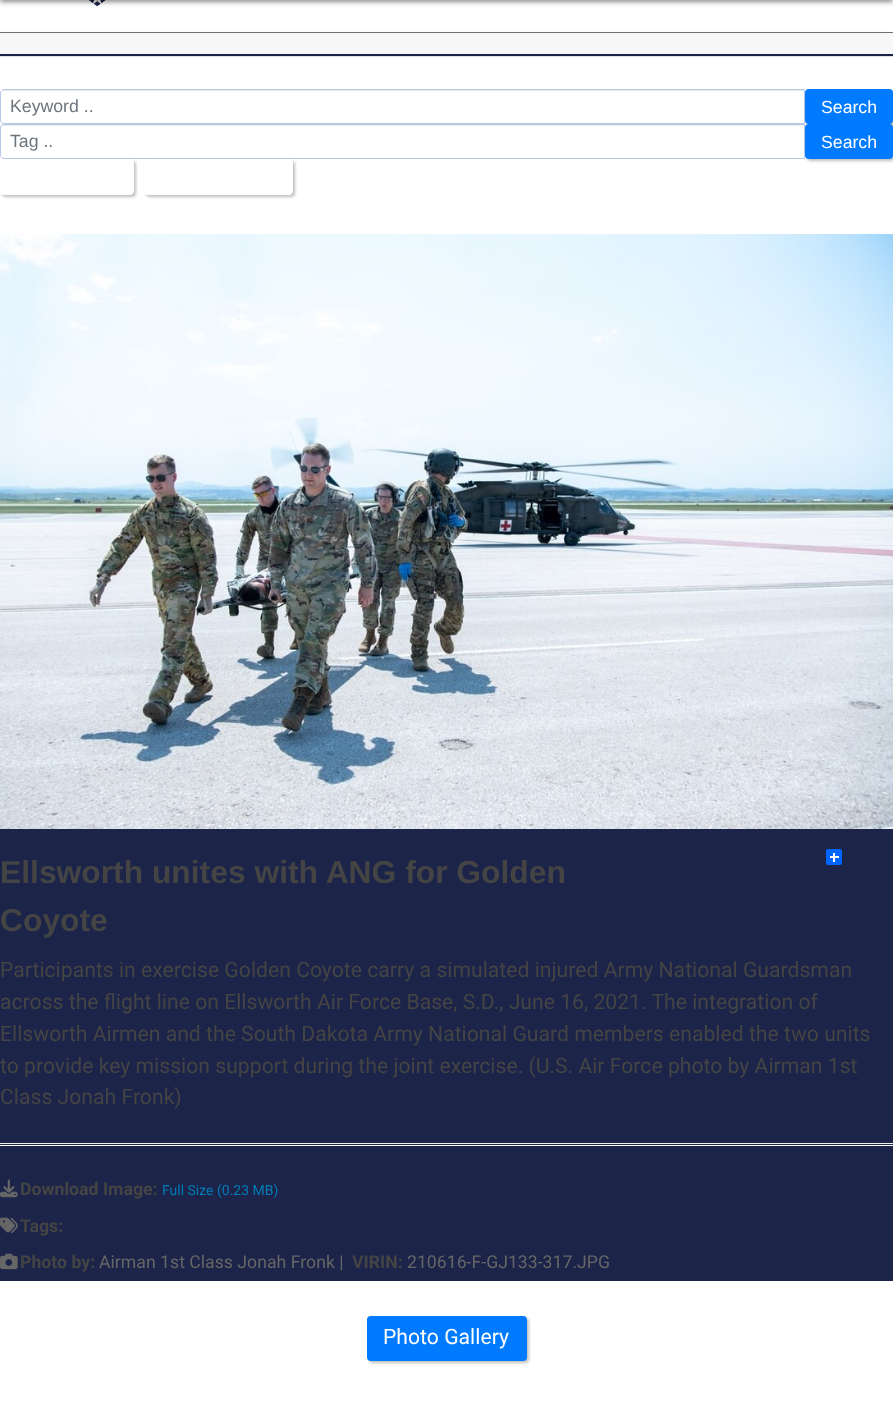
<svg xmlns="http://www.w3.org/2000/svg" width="893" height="1420">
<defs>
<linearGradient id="g1" gradientUnits="userSpaceOnUse" x1="447" y1="13" x2="447" y2="56"><stop offset="0" stop-color="#fff"/><stop offset="0.35" stop-color="#fff"/><stop offset="0.35" stop-color="#f7f7f7"/><stop offset="1" stop-color="#f7f7f7"/></linearGradient>
<clipPath id="clip1"><path d="M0 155h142v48h-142zm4 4h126c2 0 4 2 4 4v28c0 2-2 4-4 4h-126c-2 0-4-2-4-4v-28c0-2 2-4 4-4z" clip-rule="evenodd"/></clipPath>
<clipPath id="clip2"><path d="M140 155h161v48h-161zm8 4h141c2 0 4 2 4 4v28c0 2-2 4-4 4h-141c-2 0-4-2-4-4v-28c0-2 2-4 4-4z" clip-rule="evenodd"/></clipPath>
</defs>
<rect width="100%" height="100%" fill="#fff"/>
<rect y="28" width="893" height="26" fill="url(#g1)"/>
<rect y="28" width="893" height="4" fill="#ffffffbf"/>
<rect y="32" width="893" height="1" fill="#707070"/>
<image x="89" y="0" width="17" height="7" href="media/1.png"/>
<rect y="-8" width="893" height="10" fill="#00000073" filter="blur(2.5px)"/>
<rect y="56" width="893" height="1" fill="#dee2e6"/>
<rect y="54" width="893" height="2" fill="#1c2347"/>
<rect x="807" y="91" width="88" height="35" rx="4" fill="#00000040" filter="blur(1.5px)"/>
<path d="M4 91h800v-1h-800c-2 0-3 2-3 4c0-2 1-3 3-3z" fill="#ececec"/>
<path d="M4 89.5h800.5v34h-800.5c-2 0-3.5-1.5-3.5-3.5v-27c0-2 1.5-3.5 3.5-3.5z" fill="none" stroke="#b5c7e3"/>
<text x="10" y="112" style="font-family:Liberation Sans;font-size:17.7px;fill:#6c757d">Keyword ..</text>
<rect x="805" y="89" width="88" height="35" rx="4" fill="#007bff"/>
<text x="821" y="113" style="font-family:Liberation Sans;font-size:17.7px;fill:#fff">Search</text>
<rect x="807" y="126" width="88" height="35" rx="4" fill="#00000040" filter="blur(1.5px)"/>
<path d="M4 126h800v-1h-800c-2 0-3 2-3 4c0-2 1-3 3-3z" fill="#ececec"/>
<path d="M4 124.5h800.5v34h-800.5c-2 0-3.5-1.5-3.5-3.5v-27c0-2 1.5-3.5 3.5-3.5z" fill="none" stroke="#b5c7e3"/>
<text x="10" y="147" style="font-family:Liberation Sans;font-size:17.7px;fill:#6c757d">Tag ..</text>
<rect x="805" y="124" width="88" height="35" rx="4" fill="#007bff"/>
<text x="821" y="148" style="font-family:Liberation Sans;font-size:17.7px;fill:#fff">Search</text>
<g clip-path="url(#clip1)">
<rect x="2" y="161" width="134" height="36" rx="4" fill="#00000040" filter="blur(1.5px)"/>
</g>
<g clip-path="url(#clip2)">
<rect x="146" y="161" width="149" height="36" rx="4" fill="#00000040" filter="blur(1.5px)"/>
</g>
<rect y="829" width="893" height="452" fill="#1c2449"/>
<image x="0" y="234" width="893" height="595" href="media/2.png"/>
<rect x="826" y="849" width="16" height="16" rx="2" fill="#0166ff"/>
<rect x="833" y="853" width="2" height="9" fill="#fff"/>
<rect x="830" y="856" width="9" height="2" fill="#fff"/>
<text x="0" y="883" style="font-family:Liberation Sans;font-size:31.8px;font-weight:bold;fill:#444">Ellsworth unites with ANG for Golden</text>
<text x="0" y="931" style="font-family:Liberation Sans;font-size:31.8px;font-weight:bold;fill:#444">Coyote</text>
<text x="0" y="977" style="font-family:Roboto;font-size:21.2px;fill:#444">Participants in exercise Golden Coyote carry a simulated injured Army National Guardsman</text>
<text x="0" y="1009" style="font-family:Roboto;font-size:21.2px;fill:#444">across the flight line on Ellsworth Air Force Base, S.D., June 16, 2021. The integration of</text>
<text x="0" y="1041" style="font-family:Roboto;font-size:21.2px;fill:#444">Ellsworth Airmen and the South Dakota Army National Guard members enabled the two units</text>
<text x="0" y="1073" style="font-family:Roboto;font-size:21.2px;fill:#444">to provide key mission support during the joint exercise. (U.S. Air Force photo by Airman 1st</text>
<text x="0" y="1104" style="font-family:Roboto;font-size:21.2px;fill:#444">Class Jonah Fronk)</text>
<rect y="1143" width="893" height="1" fill="#eee"/>
<rect y="1145" width="893" height="1" fill="#fff"/>
<image x="0" y="1179" width="18" height="19" href="media/3.png"/>
<text x="20" y="1195" style="font-family:Roboto;font-size:17.7px;font-weight:bold;fill:#444">Download Image:</text>
<text x="162" y="1195" style="font-family:Roboto;font-size:14px;fill:#007db7">Full Size (0.23 MB)</text>
<image x="0" y="1217" width="18" height="16" href="media/4.png"/>
<text x="20" y="1232" style="font-family:Roboto;font-size:17.7px;font-weight:bold;fill:#444">Tags:</text>
<image x="0" y="1253" width="18" height="17" href="media/5.png"/>
<text x="20" y="1268" style="font-family:Roboto;font-size:17.7px;font-weight:bold;fill:#444">Photo by:</text>
<text x="99" y="1268" style="font-family:Roboto;font-size:17.7px;fill:#666">Airman 1st Class Jonah Fronk |</text>
<text x="352" y="1268" style="font-family:Roboto;font-size:17.7px;font-weight:bold;fill:#444">VIRIN:</text>
<text x="407" y="1268" style="font-family:Roboto;font-size:17.7px;fill:#666">210616-F-GJ133-317.JPG</text>
<rect x="369" y="1318" width="160" height="45" rx="4" fill="#00000040" filter="blur(1.5px)"/>
<rect x="367" y="1316" width="160" height="45" rx="4" fill="#007bff"/>
<text x="383" y="1344" style="font-family:Roboto;font-size:21.2px;fill:#fff">Photo Gallery</text>
</svg>
